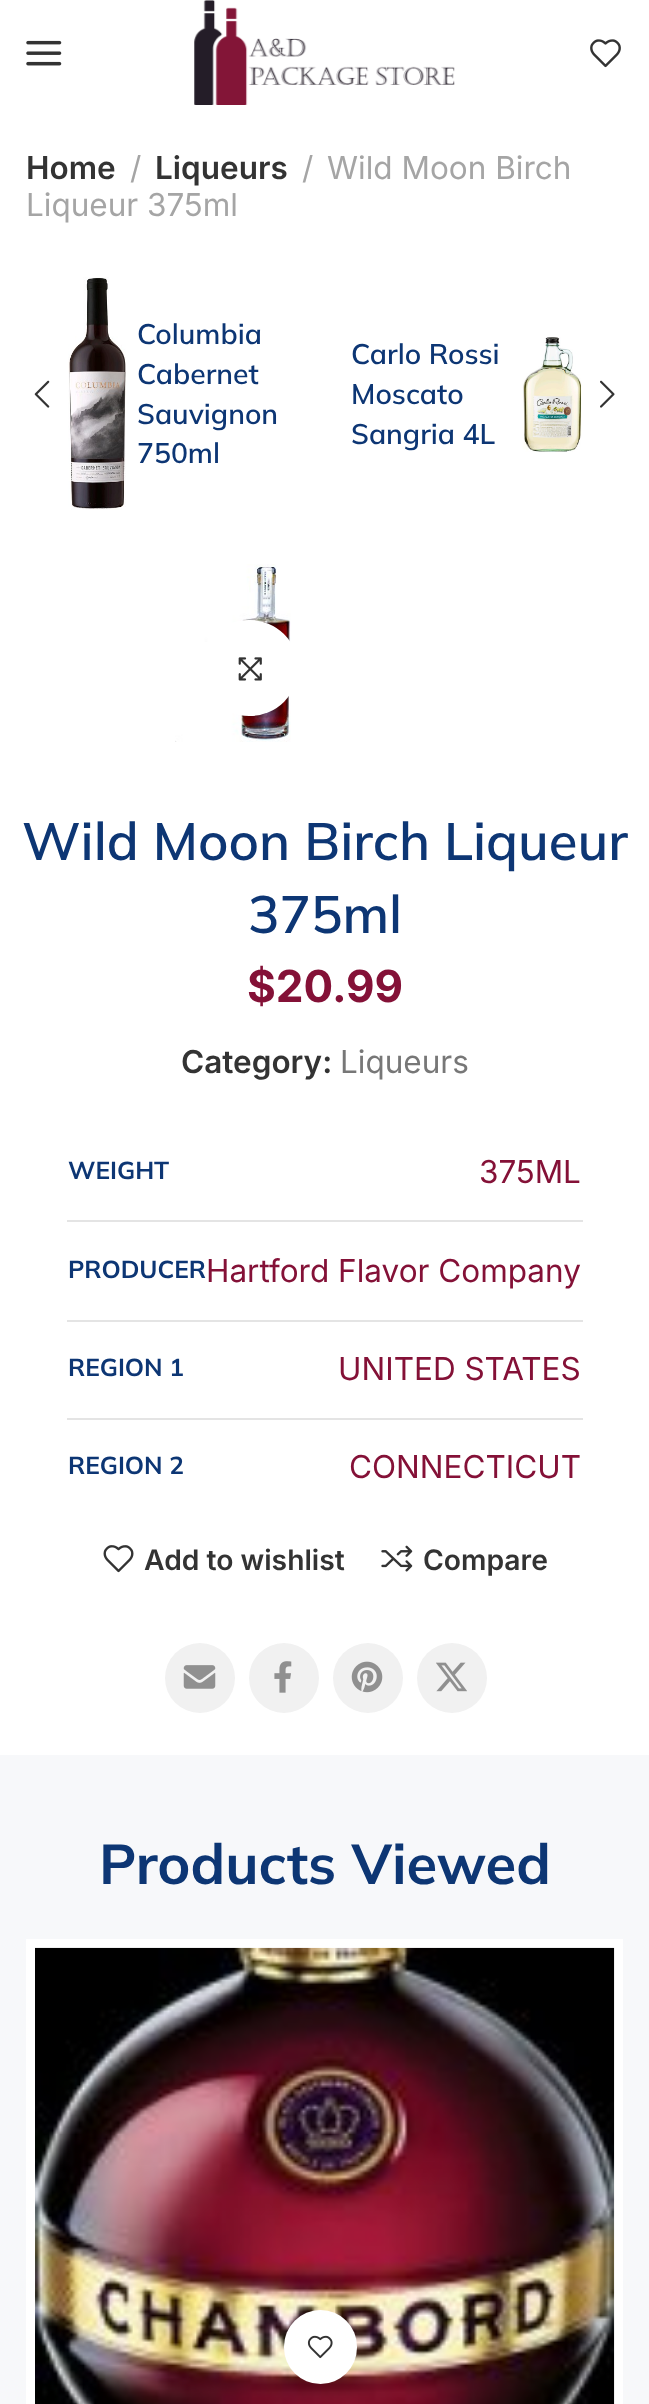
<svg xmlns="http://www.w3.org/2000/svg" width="649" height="2404">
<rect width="100%" height="100%" fill="#f7f8fa"/>
<rect width="649" height="1755" fill="#fff"/>
<image x="26" y="40" width="36" height="26" href="media/1.png"/>
<image x="194" y="0" width="261" height="105" href="media/2.png"/>
<image x="590" y="39" width="31" height="29" href="media/3.png"/>
<text x="26" y="179" style="font-family:Inter;font-size:31.5px;font-weight:600;fill:#333">Home</text>
<text x="130" y="179" style="font-family:Inter;font-size:31.5px;fill:#a5a5a5">/</text>
<text x="155" y="179" style="font-family:Inter;font-size:31.5px;font-weight:600;fill:#333">Liqueurs</text>
<text x="302" y="179" style="font-family:Inter;font-size:31.5px;fill:#a5a5a5">/</text>
<text x="327" y="179" style="font-family:Inter;font-size:31.5px;fill:#a5a5a5">Wild Moon Birch</text>
<text x="26" y="216" style="font-family:Inter;font-size:31.5px;fill:#a5a5a5">Liqueur 375ml</text>
<image x="34" y="380" width="16" height="28" href="media/4.png"/>
<image x="68" y="277" width="58" height="233" href="media/5.png"/>
<text x="137" y="344" style="font-family:Mulish;font-size:28.25px;font-weight:600;fill:#0d3674">Columbia</text>
<text x="137" y="384" style="font-family:Mulish;font-size:28.25px;font-weight:600;fill:#0d3674">Cabernet</text>
<text x="137" y="424" style="font-family:Mulish;font-size:28.25px;font-weight:600;fill:#0d3674">Sauvignon</text>
<text x="137" y="463" style="font-family:Mulish;font-size:28.25px;font-weight:600;fill:#0d3674">750ml</text>
<text x="351" y="364" style="font-family:Mulish;font-size:28.25px;font-weight:600;fill:#0d3674">Carlo Rossi</text>
<text x="351" y="404" style="font-family:Mulish;font-size:28.25px;font-weight:600;fill:#0d3674">Moscato</text>
<text x="351" y="444" style="font-family:Mulish;font-size:28.25px;font-weight:600;fill:#0d3674">Sangria 4L</text>
<image x="522" y="337" width="60" height="115" href="media/6.png"/>
<image x="600" y="380" width="15" height="28" href="media/7.png"/>
<image x="175" y="564" width="116" height="178" href="media/8.png"/>
<rect x="201" y="620" width="97" height="96" rx="48" fill="#fff"/>
<image x="238" y="657" width="24" height="24" href="media/9.png"/>
<text x="22" y="860" style="font-family:Mulish;font-size:52.5px;font-weight:600;fill:#0d3674">Wild Moon Birch Liqueur</text>
<text x="248" y="933" style="font-family:Mulish;font-size:52.5px;font-weight:600;fill:#0d3674">375ml</text>
<text x="247" y="1002" style="font-family:Inter;font-size:44px;font-weight:bold;fill:#841137">$20.99</text>
<text x="181" y="1073" style="font-family:Inter;font-size:31.5px;font-weight:600;fill:#333">Category:</text>
<text x="340" y="1073" style="font-family:Inter;font-size:31.5px;fill:#777">Liqueurs</text>
<text x="68" y="1179" style="font-family:Mulish;font-size:24.5px;font-weight:bold;fill:#0d3674">WEIGHT</text>
<rect x="67" y="1220" width="516" height="2" fill="#e4e4e4"/>
<text x="479" y="1183" style="font-family:Inter;font-size:31.5px;fill:#841137">375ML</text>
<text x="68" y="1278" style="font-family:Mulish;font-size:24.5px;font-weight:bold;fill:#0d3674">PRODUCER</text>
<rect x="67" y="1320" width="516" height="2" fill="#e4e4e4"/>
<text x="206" y="1282" style="font-family:Inter;font-size:31.5px;fill:#841137">Hartford Flavor Company</text>
<text x="68" y="1376" style="font-family:Mulish;font-size:24.5px;font-weight:bold;fill:#0d3674">REGION 1</text>
<rect x="67" y="1418" width="516" height="2" fill="#e4e4e4"/>
<text x="338" y="1380" style="font-family:Inter;font-size:31.5px;fill:#841137">UNITED STATES</text>
<text x="68" y="1474" style="font-family:Mulish;font-size:24.5px;font-weight:bold;fill:#0d3674">REGION 2</text>
<text x="349" y="1478" style="font-family:Inter;font-size:31.5px;fill:#841137">CONNECTICUT</text>
<image x="103" y="1545" width="31" height="28" href="media/10.png"/>
<text x="144" y="1570" style="font-family:Inter;font-size:28.25px;font-weight:600;fill:#333">Add to wishlist</text>
<image x="381" y="1545" width="32" height="27" href="media/11.png"/>
<text x="423" y="1570" style="font-family:Inter;font-size:28.25px;font-weight:600;fill:#333">Compare</text>
<circle cx="200" cy="1678" r="35" fill="#f1f1f1"/>
<image x="183" y="1665" width="33" height="24" href="media/12.png"/>
<circle cx="284" cy="1678" r="35" fill="#f1f1f1"/>
<image x="274" y="1661" width="18" height="32" href="media/13.png"/>
<circle cx="368" cy="1678" r="35" fill="#f1f1f1"/>
<image x="351" y="1661" width="32" height="32" href="media/14.png"/>
<circle cx="452" cy="1678" r="35" fill="#f1f1f1"/>
<image x="436" y="1662" width="31" height="30" href="media/15.png"/>
<text x="99" y="1884" style="font-family:Mulish;font-size:56px;font-weight:bold;fill:#0d3674">Products Viewed</text>
<rect x="26" y="1939" width="597" height="465" fill="#fff"/>
<image x="35" y="1947" width="580" height="457" href="media/16.png"/>
<rect x="284" y="2310" width="73" height="74" rx="36.5" fill="#fff"/>
<image x="307" y="2335" width="26" height="24" href="media/17.png"/>
</svg>
